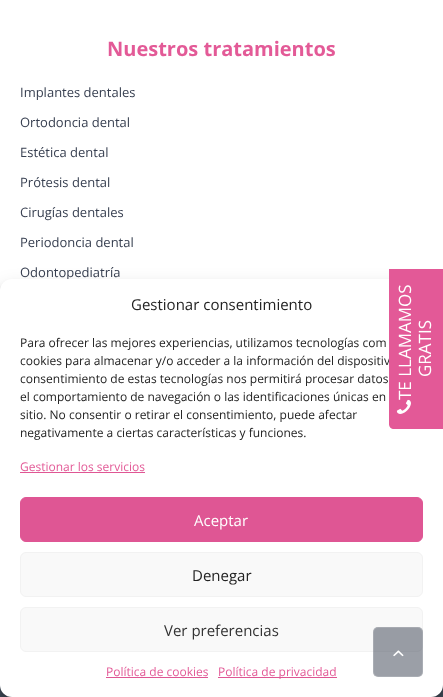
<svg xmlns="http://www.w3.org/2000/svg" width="443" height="697">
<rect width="100%" height="100%" fill="#fff"/>
<text x="107" y="56" style="font-family:Open Sans;font-size:20px;font-weight:bold;fill:#e35a97">Nuestros tratamientos</text>
<text x="20" y="97" style="font-family:Open Sans;font-size:13px;fill:#373f50">Implantes dentales</text>
<text x="20" y="127" style="font-family:Open Sans;font-size:13px;fill:#373f50">Ortodoncia dental</text>
<text x="20" y="157" style="font-family:Open Sans;font-size:13px;fill:#373f50">Estética dental</text>
<text x="20" y="187" style="font-family:Open Sans;font-size:13px;fill:#373f50">Prótesis dental</text>
<text x="20" y="217" style="font-family:Open Sans;font-size:13px;fill:#373f50">Cirugías dentales</text>
<text x="20" y="247" style="font-family:Open Sans;font-size:13px;fill:#373f50">Periodoncia dental</text>
<text x="20" y="277" style="font-family:Open Sans;font-size:13px;fill:#373f50">Odontopediatría</text>
<rect y="685" width="443" height="12" fill="#444f5d"/>
<rect y="285" width="443" height="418" rx="12" fill="#0000003b" filter="blur(3px)"/>
<rect y="289" width="443" height="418" rx="12" fill="#00000030" filter="blur(10px)"/>
<rect x="373" y="623" width="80" height="60" rx="2" fill="#808080" filter="blur(2.5px)"/>
<rect y="279" width="443" height="418" rx="12" fill="#fff"/>
<rect x="20.5" y="607.5" width="402" height="44" rx="5.5" fill="#f9f9f9" stroke="#f2f2f2"/>
<rect x="373" y="627" width="50" height="50" rx="5" fill="#373f5080"/>
<rect x="373.5" y="627.5" width="49" height="49" rx="4.5" fill="none" stroke="#ffffff26"/>
<image x="393" y="650" width="11" height="7" href="media/1.png"/>
<text x="131" y="310" style="font-family:Open Sans;font-size:15px;fill:#222">Gestionar consentimiento</text>
<text x="20" y="347" style="font-family:Open Sans;font-size:12px;fill:#222">Para ofrecer las mejores experiencias, utilizamos tecnologías com</text>
<text x="20" y="365" style="font-family:Open Sans;font-size:12px;fill:#222">cookies para almacenar y/o acceder a la información del dispositiv</text>
<text x="20" y="383" style="font-family:Open Sans;font-size:12px;fill:#222">consentimiento de estas tecnologías nos permitirá procesar datos</text>
<text x="20" y="401" style="font-family:Open Sans;font-size:12px;fill:#222">el comportamiento de navegación o las identificaciones únicas en</text>
<text x="20" y="419" style="font-family:Open Sans;font-size:12px;fill:#222">sitio. No consentir o retirar el consentimiento, puede afectar</text>
<text x="20" y="437" style="font-family:Open Sans;font-size:12px;fill:#222">negativamente a ciertas características y funciones.</text>
<text x="20" y="471" style="font-family:Open Sans;font-size:12px;fill:#e35a97">Gestionar los servicios</text>
<rect x="20" y="472" width="125" height="1" fill="#df5694"/>
<rect x="20.5" y="497.5" width="402" height="44" rx="5.5" fill="#df5694" stroke="#df5694"/>
<text x="194" y="526" style="font-family:Open Sans;font-size:15px;fill:#fff">Aceptar</text>
<rect x="20.5" y="552.5" width="402" height="44" rx="5.5" fill="#f9f9f9" stroke="#f2f2f2"/>
<text x="192" y="581" style="font-family:Open Sans;font-size:15px;fill:#222">Denegar</text>
<text x="164" y="636" style="font-family:Open Sans;font-size:15px;fill:#333">Ver preferencias</text>
<text x="106" y="676" style="font-family:Open Sans;font-size:12px;fill:#e35a97">Política de cookies</text>
<rect x="106" y="677" width="102" height="1" fill="#df5694"/>
<rect x="218" y="677" width="119" height="1" fill="#df5694"/>
<text x="218" y="676" style="font-family:Open Sans;font-size:12px;fill:#e35a97">Política de privacidad</text>
<path d="M389 424v-155h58v155c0 3-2 5-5 5h-48c-3 0-5-2-5-5z" fill="#e35997"/>
<image x="396" y="399" width="15" height="15" href="media/2.png"/>
<text x="411" y="400" transform="rotate(-90 411 400)" style="font-family:Open Sans;font-size:17px;fill:#fff">TE LLAMAMOS</text>
<text x="431" y="377" transform="rotate(-90 431 377)" style="font-family:Open Sans;font-size:17px;fill:#fff">GRATIS</text>
</svg>
